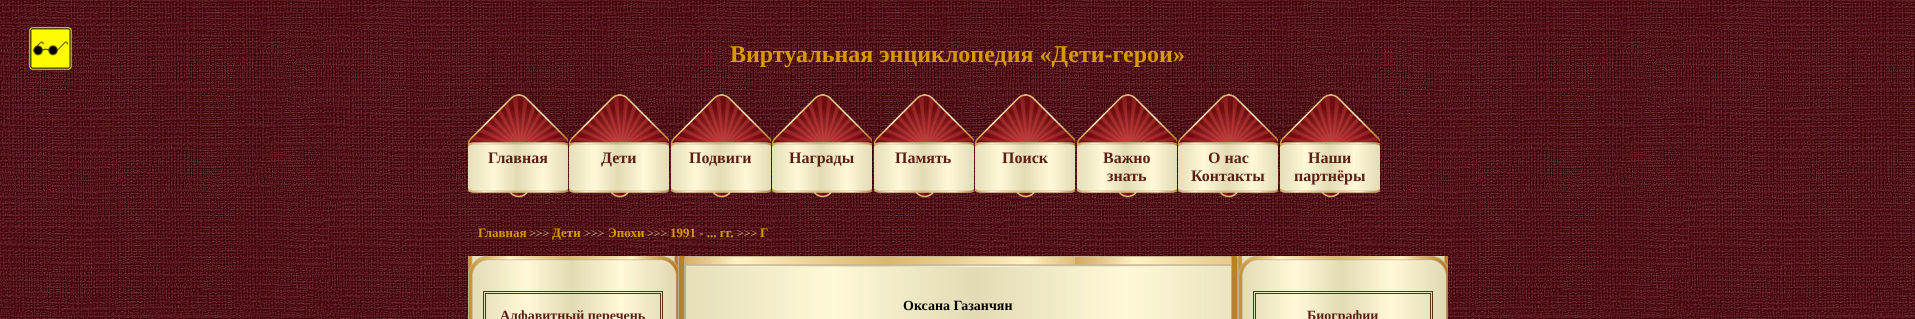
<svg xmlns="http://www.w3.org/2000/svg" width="1915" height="319">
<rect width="100%" height="100%" fill="#fff"/>
<image x="0" y="0" width="1915" height="319" href="media/1.png"/>
<image x="29" y="27" width="43" height="43" href="media/2.png"/>
<text x="730" y="62" style="font-family:Liberation Serif;font-size:24px;font-weight:bold;fill:#d59a00">Виртуальная энциклопедия «Дети-герои»</text>
<image x="468" y="94" width="100" height="104" href="media/3.png"/>
<text x="488" y="163" style="font-family:Liberation Serif;font-size:16px;font-weight:bold;fill:#5c1d12">Главная</text>
<image x="569" y="94" width="100" height="104" href="media/4.png"/>
<text x="601" y="163" style="font-family:Liberation Serif;font-size:16px;font-weight:bold;fill:#5c1d12">Дети</text>
<image x="671" y="94" width="100" height="104" href="media/5.png"/>
<text x="689" y="163" style="font-family:Liberation Serif;font-size:16px;font-weight:bold;fill:#5c1d12">Подвиги</text>
<image x="772" y="94" width="100" height="104" href="media/6.png"/>
<text x="789" y="163" style="font-family:Liberation Serif;font-size:16px;font-weight:bold;fill:#5c1d12">Награды</text>
<image x="874" y="94" width="100" height="104" href="media/7.png"/>
<text x="895" y="163" style="font-family:Liberation Serif;font-size:16px;font-weight:bold;fill:#5c1d12">Память</text>
<image x="975" y="94" width="100" height="104" href="media/8.png"/>
<text x="1002" y="163" style="font-family:Liberation Serif;font-size:16px;font-weight:bold;fill:#5c1d12">Поиск</text>
<image x="1077" y="94" width="100" height="104" href="media/9.png"/>
<text x="1103" y="163" style="font-family:Liberation Serif;font-size:16px;font-weight:bold;fill:#5c1d12">Важно</text>
<text x="1107" y="181" style="font-family:Liberation Serif;font-size:16px;font-weight:bold;fill:#5c1d12">знать</text>
<image x="1178" y="94" width="100" height="104" href="media/10.png"/>
<text x="1208" y="163" style="font-family:Liberation Serif;font-size:16px;font-weight:bold;fill:#5c1d12">О нас</text>
<text x="1191" y="181" style="font-family:Liberation Serif;font-size:16px;font-weight:bold;fill:#5c1d12">Контакты</text>
<image x="1280" y="94" width="100" height="104" href="media/11.png"/>
<text x="1308" y="163" style="font-family:Liberation Serif;font-size:16px;font-weight:bold;fill:#5c1d12">Наши</text>
<text x="1294" y="181" style="font-family:Liberation Serif;font-size:16px;font-weight:bold;fill:#5c1d12">партнёры</text>
<text x="478" y="237" style="font-family:Liberation Serif;font-size:13px;font-weight:bold;fill:#d59a00">Главная</text>
<text x="529" y="237" style="font-family:Liberation Serif;font-size:12px;fill:#cfb17d">&gt;&gt;&gt;</text>
<text x="552" y="237" style="font-family:Liberation Serif;font-size:13px;font-weight:bold;fill:#d59a00">Дети</text>
<text x="584" y="237" style="font-family:Liberation Serif;font-size:12px;fill:#cfb17d">&gt;&gt;&gt;</text>
<text x="608" y="237" style="font-family:Liberation Serif;font-size:13px;font-weight:bold;fill:#d59a00">Эпохи</text>
<text x="647" y="237" style="font-family:Liberation Serif;font-size:12px;fill:#cfb17d">&gt;&gt;&gt;</text>
<text x="670" y="237" style="font-family:Liberation Serif;font-size:13px;font-weight:bold;fill:#d59a00">1991 - ... гг.</text>
<text x="737" y="237" style="font-family:Liberation Serif;font-size:12px;fill:#cfb17d">&gt;&gt;&gt;</text>
<text x="760" y="237" style="font-family:Liberation Serif;font-size:13px;font-weight:bold;fill:#d59a00">Г</text>
<image x="686" y="267" width="545" height="52" href="media/12.png"/>
<image x="678" y="256" width="560" height="11" href="media/13.png"/>
<image x="678" y="256" width="8" height="63" href="media/14.png"/>
<image x="1231" y="256" width="7" height="63" href="media/15.png"/>
<text x="903" y="310" style="font-family:Liberation Serif;font-size:14px;font-weight:bold;fill:#000">Оксана Газанчян</text>
<image x="468" y="256" width="210" height="20" href="media/16.png"/>
<image x="468" y="256" width="210" height="63" href="media/17.png"/>
<rect x="483.5" y="291.5" width="179" height="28" fill="none" stroke="#54330f"/>
<rect x="485.5" y="293.5" width="175" height="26" fill="none" stroke="#54330f"/>
<text x="500" y="320" style="font-family:Liberation Serif;font-size:14px;font-weight:bold;fill:#5c1d12">Алфавитный перечень</text>
<image x="1238" y="256" width="210" height="20" href="media/16.png"/>
<image x="1238" y="256" width="210" height="63" href="media/17.png"/>
<rect x="1253.5" y="291.5" width="179" height="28" fill="none" stroke="#54330f"/>
<rect x="1255.5" y="293.5" width="175" height="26" fill="none" stroke="#54330f"/>
<text x="1307" y="320" style="font-family:Liberation Serif;font-size:14px;font-weight:bold;fill:#5c1d12">Биографии</text>
</svg>
